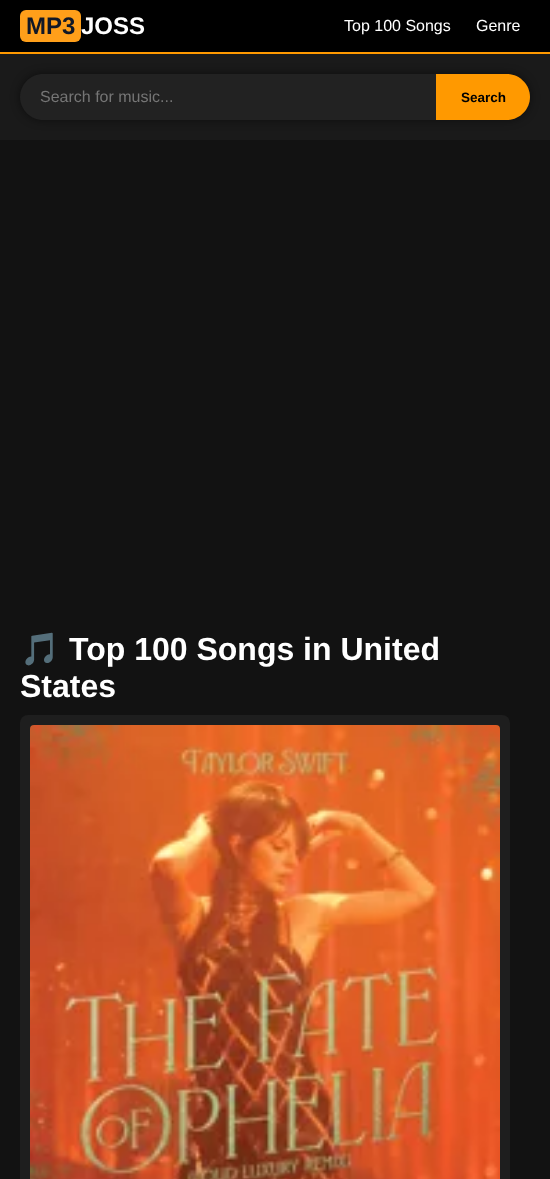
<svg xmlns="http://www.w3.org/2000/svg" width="550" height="1179">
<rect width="100%" height="100%" fill="#121212"/>
<rect width="550" height="52" fill="#000"/>
<rect y="52" width="550" height="2" fill="#f90"/>
<rect x="20" y="10" width="61" height="32" rx="6" fill="#ff9f1a"/>
<text x="26" y="34" style="font-family:Liberation Sans;font-size:24px;font-weight:bold;fill:#111827">MP3</text>
<text x="81" y="34" style="font-family:Liberation Sans;font-size:24px;font-weight:bold;fill:#fff">JOSS</text>
<text x="344" y="31" style="font-family:Liberation Sans;font-size:16px;fill:#fff">Top 100 Songs</text>
<text x="476" y="31" style="font-family:Liberation Sans;font-size:16px;fill:#fff">Genre</text>
<rect y="54" width="550" height="86" fill="#1a1a1a"/>
<rect x="20" y="74" width="510" height="46" rx="23" fill="#00000080" filter="blur(5px)"/>
<path d="M43 74h393v46h-393c-12.5 0-23-10.5-23-23c0-12.5 10.5-23 23-23z" fill="#222"/>
<text x="40" y="102" style="font-family:Liberation Sans;font-size:16px;fill:#757575">Search for music...</text>
<path d="M436 74h71c12.5 0 23 10.5 23 23c0 12.5-10.5 23-23 23h-71z" fill="#f90"/>
<text x="461" y="102" style="font-family:Liberation Sans;font-size:13.5px;font-weight:bold;fill:#000">Search</text>
<text x="20" y="660" style="font-family:Noto Color Emoji;font-size:32px;font-weight:bold;fill:#fff">🎵</text>
<text x="69" y="660" style="font-family:Liberation Sans;font-size:32px;font-weight:bold;fill:#fff">Top 100 Songs in United</text>
<text x="20" y="697" style="font-family:Liberation Sans;font-size:32px;font-weight:bold;fill:#fff">States</text>
<rect x="20" y="715" width="490" height="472" rx="8" fill="#1e1e1e"/>
<image x="30" y="725" width="470" height="454" href="media/1.png"/>
</svg>
